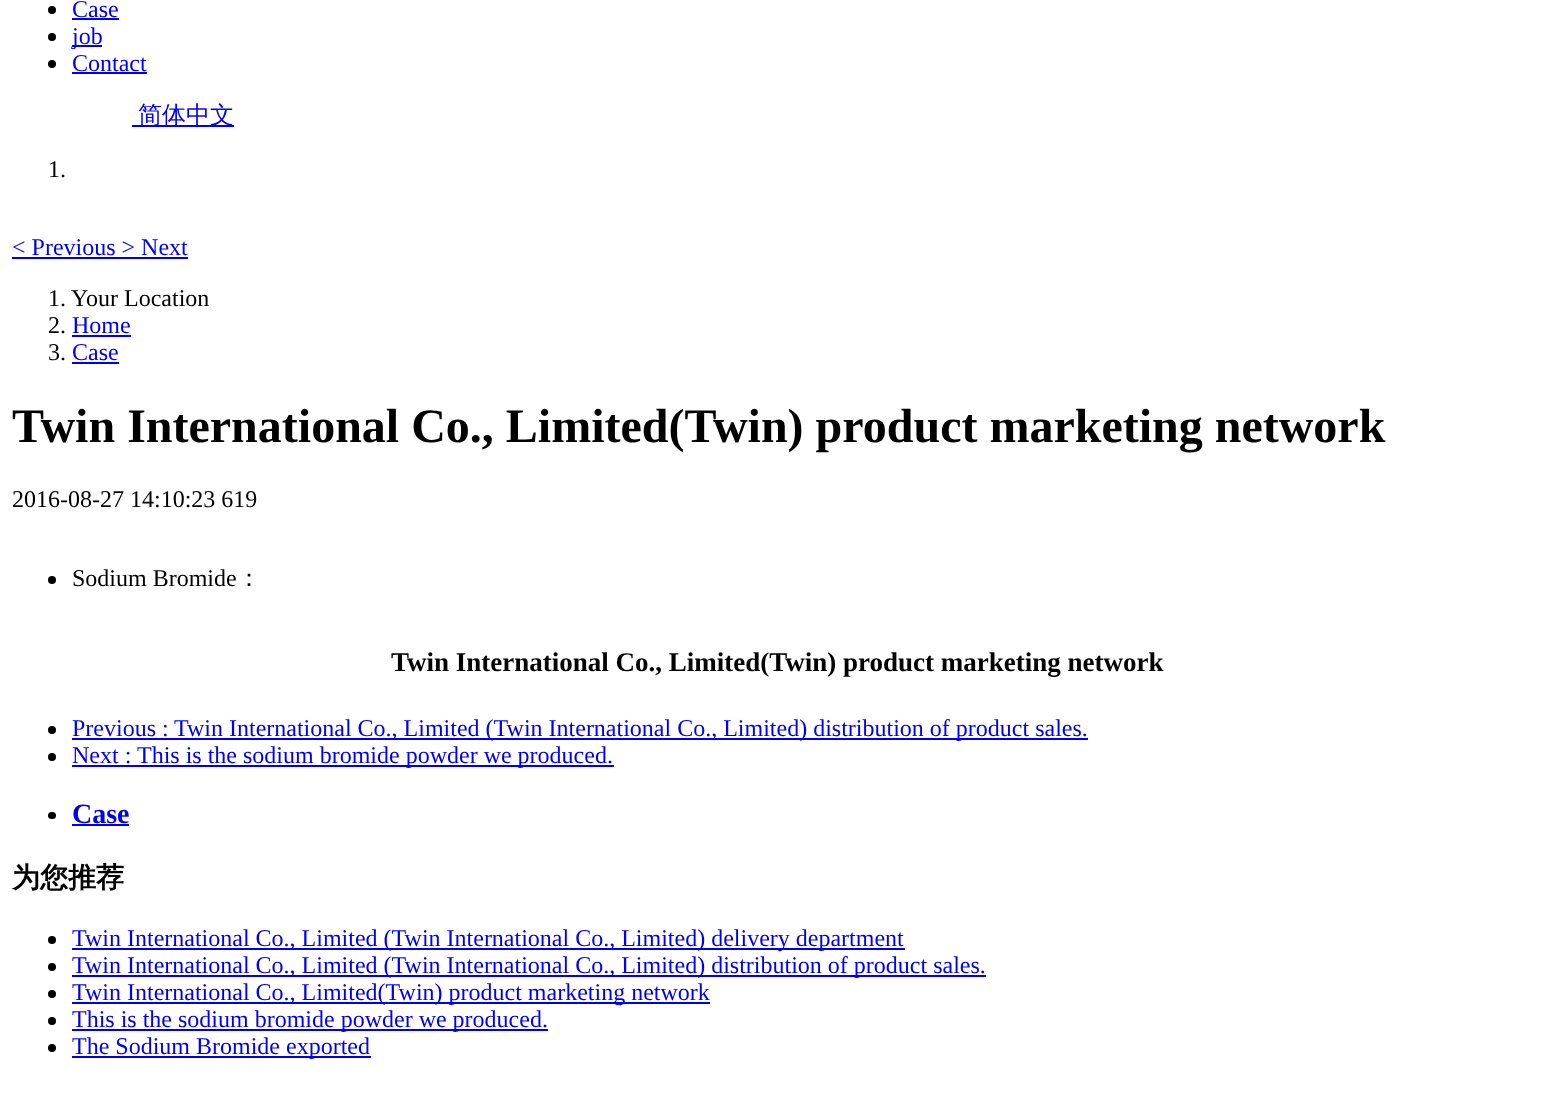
<svg xmlns="http://www.w3.org/2000/svg" width="1554" height="1097">
<rect width="100%" height="100%" fill="#fff"/>
<circle cx="52" cy="10" r="4" fill="#000"/>
<text x="72" y="17" style="font-family:Liberation Serif;font-size:24px;fill:#00e">Case</text>
<rect x="72" y="18" width="47" height="2" fill="#00e"/>
<circle cx="52" cy="37" r="4" fill="#000"/>
<rect x="72" y="45" width="30" height="2" fill="#00e"/>
<text x="72" y="44" style="font-family:Liberation Serif;font-size:24px;fill:#00e">job</text>
<circle cx="52" cy="64" r="4" fill="#000"/>
<text x="72" y="71" style="font-family:Liberation Serif;font-size:24px;fill:#00e">Contact</text>
<rect x="72" y="72" width="75" height="2" fill="#00e"/>
<rect x="132" y="125" width="102" height="2" fill="#00e"/>
<text x="138" y="123" style="font-family:WenQuanYi Zen Hei;font-size:24px;font-weight:500;fill:#00e">简体中文</text>
<text x="48" y="177" style="font-family:Liberation Serif;font-size:24px;fill:#000">1.</text>
<text x="12" y="255" style="font-family:Liberation Serif;font-size:24px;fill:#00e">&lt; Previous &gt; Next</text>
<rect x="12" y="257" width="176" height="2" fill="#00e"/>
<text x="48" y="306" style="font-family:Liberation Serif;font-size:24px;fill:#000">1. Your Location</text>
<text x="48" y="333" style="font-family:Liberation Serif;font-size:24px;fill:#000">2.</text>
<text x="72" y="333" style="font-family:Liberation Serif;font-size:24px;fill:#00e">Home</text>
<rect x="72" y="335" width="59" height="2" fill="#00e"/>
<text x="48" y="360" style="font-family:Liberation Serif;font-size:24px;fill:#000">3.</text>
<text x="72" y="360" style="font-family:Liberation Serif;font-size:24px;fill:#00e">Case</text>
<rect x="72" y="362" width="47" height="2" fill="#00e"/>
<text x="12" y="442" style="font-family:Liberation Serif;font-size:48px;font-weight:bold;fill:#000">Twin International Co., Limited(Twin) product marketing network</text>
<text x="12" y="507" style="font-family:Liberation Serif;font-size:24px;fill:#000">2016-08-27 14:10:23 619</text>
<circle cx="52" cy="580" r="4" fill="#000"/>
<text x="72" y="586" style="font-family:Liberation Serif;font-size:24px;fill:#000">Sodium Bromide</text>
<text x="237" y="586" style="font-family:WenQuanYi Zen Hei;font-size:24px;font-weight:500;fill:#000">：</text>
<text x="391" y="671" style="font-family:Liberation Serif;font-size:27px;font-weight:bold;fill:#000">Twin International Co., Limited(Twin) product marketing network</text>
<circle cx="52" cy="730" r="4" fill="#000"/>
<text x="72" y="736" style="font-family:Liberation Serif;font-size:24px;fill:#00e">Previous :</text>
<rect x="72" y="738" width="1016" height="2" fill="#00e"/>
<text x="174" y="736" style="font-family:Liberation Serif;font-size:24px;fill:#00e">Twin International Co., Limited (Twin International Co., Limited) distribution of product sales.</text>
<circle cx="52" cy="757" r="4" fill="#000"/>
<text x="72" y="763" style="font-family:Liberation Serif;font-size:24px;fill:#00e">Next :</text>
<rect x="72" y="765" width="542" height="2" fill="#00e"/>
<text x="137" y="763" style="font-family:Liberation Serif;font-size:24px;fill:#00e">This is the sodium bromide powder we produced.</text>
<rect x="48" y="812" width="8" height="7" rx="3.5" fill="#000"/>
<text x="72" y="823" style="font-family:Liberation Serif;font-size:28px;font-weight:bold;fill:#00e">Case</text>
<rect x="72" y="824" width="57" height="2" fill="#00e"/>
<text x="12" y="887" style="font-family:WenQuanYi Zen Hei;font-size:28px;font-weight:bold;fill:#000">为您推荐</text>
<circle cx="52" cy="940" r="4" fill="#000"/>
<rect x="72" y="948" width="833" height="2" fill="#00e"/>
<text x="72" y="946" style="font-family:Liberation Serif;font-size:24px;fill:#00e">Twin International Co., Limited (Twin International Co., Limited) delivery department</text>
<circle cx="52" cy="967" r="4" fill="#000"/>
<rect x="72" y="975" width="914" height="2" fill="#00e"/>
<text x="72" y="973" style="font-family:Liberation Serif;font-size:24px;fill:#00e">Twin International Co., Limited (Twin International Co., Limited) distribution of product sales.</text>
<circle cx="52" cy="994" r="4" fill="#000"/>
<rect x="72" y="1002" width="638" height="2" fill="#00e"/>
<text x="72" y="1000" style="font-family:Liberation Serif;font-size:24px;fill:#00e">Twin International Co., Limited(Twin) product marketing network</text>
<circle cx="52" cy="1021" r="4" fill="#000"/>
<rect x="72" y="1029" width="476" height="2" fill="#00e"/>
<text x="72" y="1027" style="font-family:Liberation Serif;font-size:24px;fill:#00e">This is the sodium bromide powder we produced.</text>
<circle cx="52" cy="1048" r="4" fill="#000"/>
<rect x="72" y="1056" width="299" height="2" fill="#00e"/>
<text x="72" y="1054" style="font-family:Liberation Serif;font-size:24px;fill:#00e">The Sodium Bromide exported</text>
</svg>
